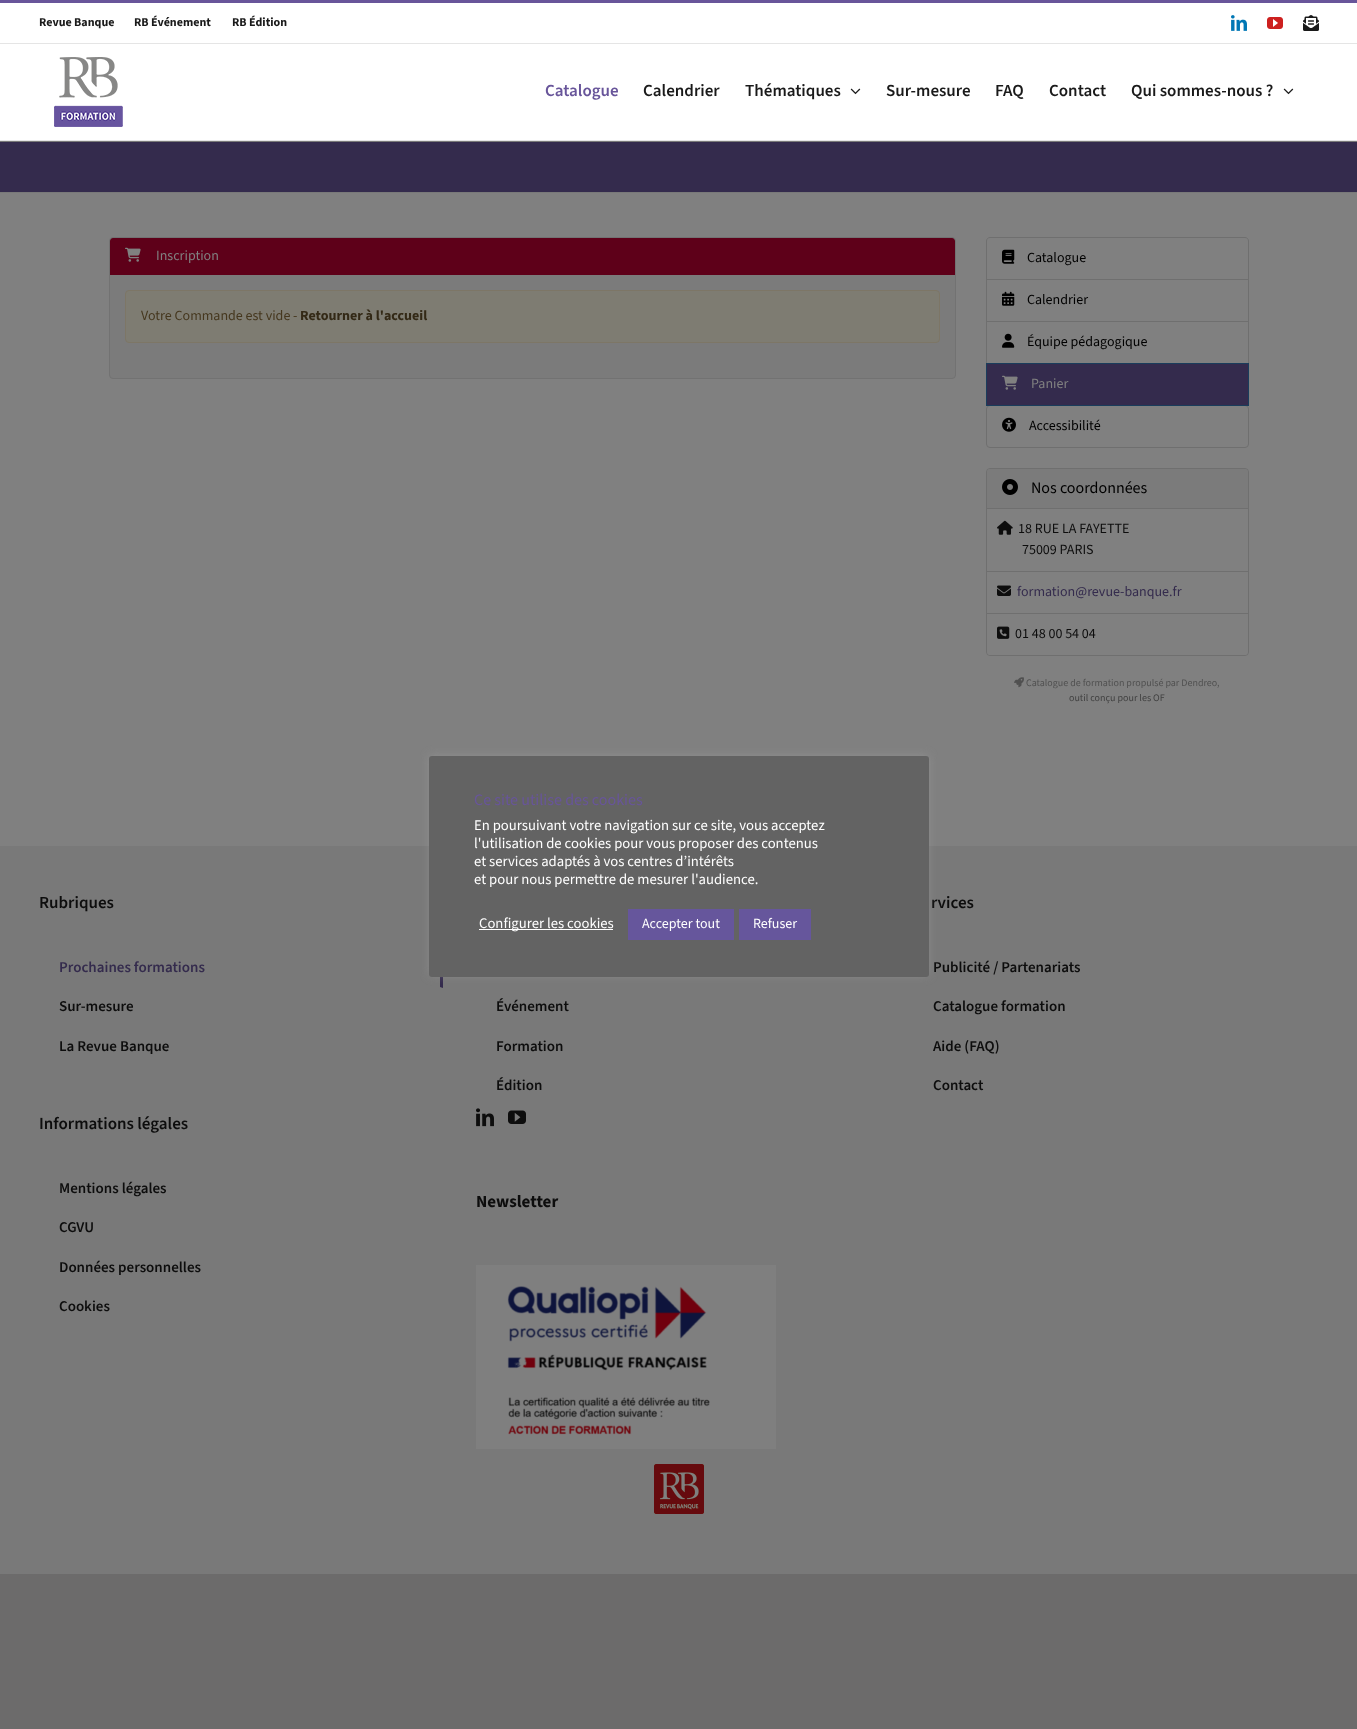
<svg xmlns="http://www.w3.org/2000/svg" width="1357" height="1729">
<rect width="100%" height="100%" fill="#6c6b6b"/>
<rect y="193" width="1357" height="653" fill="#808080"/>
<rect y="3" width="1357" height="40" fill="#fff"/>
<rect width="1357" height="3" fill="#68559a"/>
<rect y="43" width="1357" height="1" fill="#e5e5e5"/>
<text x="39" y="26" style="font-family:'Source Sans 3';font-size:12px;font-weight:bold;fill:#1a1a1a">Revue Banque</text>
<text x="134" y="26" style="font-family:'Source Sans 3';font-size:12px;font-weight:bold;fill:#1a1a1a">RB Événement</text>
<text x="232" y="26" style="font-family:'Source Sans 3';font-size:12px;font-weight:bold;fill:#1a1a1a">RB Édition</text>
<image x="1231" y="15" width="16" height="16" href="media/1.png"/>
<image x="1267" y="17" width="16" height="12" href="media/2.png"/>
<image x="1303" y="15" width="16" height="16" href="media/3.png"/>
<rect y="44" width="1357" height="96" fill="#fff"/>
<rect y="140" width="1357" height="1" fill="#e5e5e5"/>
<image x="54" y="57" width="69" height="70" href="media/4.png"/>
<text x="545" y="96" style="font-family:'Source Sans 3';font-size:17px;font-weight:600;fill:#68559a">Catalogue</text>
<text x="643" y="96" style="font-family:'Source Sans 3';font-size:17px;font-weight:600;fill:#1a1a1a">Calendrier</text>
<text x="745" y="96" style="font-family:'Source Sans 3';font-size:17px;font-weight:600;fill:#1a1a1a">Thématiques</text>
<image x="850" y="88" width="11" height="7" href="media/5.png"/>
<text x="886" y="96" style="font-family:'Source Sans 3';font-size:17px;font-weight:600;fill:#1a1a1a">Sur-mesure</text>
<text x="995" y="96" style="font-family:'Source Sans 3';font-size:17px;font-weight:600;fill:#1a1a1a">FAQ</text>
<text x="1049" y="96" style="font-family:'Source Sans 3';font-size:17px;font-weight:600;fill:#1a1a1a">Contact</text>
<text x="1131" y="96" style="font-family:'Source Sans 3';font-size:17px;font-weight:600;fill:#1a1a1a">Qui sommes-nous ?</text>
<image x="1283" y="88" width="11" height="7" href="media/5.png"/>
<rect y="142" width="1357" height="50" fill="#342b4d"/>
<rect y="141" width="1357" height="1" fill="#797979"/>
<rect y="192" width="1357" height="1" fill="#797979"/>
<rect x="109.5" y="237.5" width="846" height="141" rx="3.5" fill="#7b7b7b" stroke="#727272"/>
<path d="M113 238h839c1.5 0 3 1.5 3 3v34h-845v-34c0-1.5 1.5-3 3-3z" fill="#5e0019"/>
<image x="125" y="247" width="16" height="15" href="media/6.png"/>
<text x="156" y="260" style="font-family:'Source Sans 3';font-size:14px;fill:#808080">Inscription</text>
<rect x="125.5" y="290.5" width="814" height="52" rx="3.5" fill="#7e7c72" stroke="#7d7666"/>
<text x="141" y="320" style="font-family:'Source Sans 3';font-size:14px;fill:#45371e">Votre Commande est vide -</text>
<text x="300" y="320" style="font-family:'Source Sans 3';font-size:14px;font-weight:bold;fill:#332916">Retourner à l'accueil</text>
<path d="M990 237.5h255c2 0 3.5 1.5 3.5 3.5v38.5h-262v-38.5c0-2 1.5-3.5 3.5-3.5z" fill="none" stroke="#6f6f6f"/>
<image x="1002" y="249" width="13" height="15" href="media/7.png"/>
<text x="1027" y="262" style="font-family:'Source Sans 3';font-size:14px;fill:#000">Catalogue</text>
<rect x="986.5" y="279.5" width="262" height="42" fill="none" stroke="#6f6f6f"/>
<image x="1002" y="291" width="13" height="15" href="media/8.png"/>
<text x="1027" y="304" style="font-family:'Source Sans 3';font-size:14px;fill:#000">Calendrier</text>
<rect x="986.5" y="321.5" width="262" height="42" fill="none" stroke="#6f6f6f"/>
<image x="1002" y="333" width="13" height="15" href="media/9.png"/>
<text x="1027" y="346" style="font-family:'Source Sans 3';font-size:14px;fill:#000">Équipe pédagogique</text>
<rect x="986.5" y="405.5" width="262" height="42" rx="3.5" fill="none" stroke="#6f6f6f"/>
<rect x="986.5" y="363.5" width="262" height="42" fill="#342b4d" stroke="#1a3d5c"/>
<image x="1002" y="375" width="16" height="15" href="media/10.png"/>
<text x="1031" y="388" style="font-family:'Source Sans 3';font-size:14px;fill:#808080">Panier</text>
<image x="1002" y="417" width="14" height="15" href="media/11.png"/>
<text x="1029" y="430" style="font-family:'Source Sans 3';font-size:14px;fill:#000">Accessibilité</text>
<rect x="986.5" y="468.5" width="262" height="187" rx="3.5" fill="none" stroke="#6f6f6f"/>
<path d="M990 469h255c1.5 0 3 1.5 3 3v37h-261v-37c0-1.5 1.5-3 3-3z" fill="#7b7b7b"/>
<rect x="987" y="508" width="261" height="1" fill="#6f6f6f"/>
<image x="1002" y="479" width="16" height="16" href="media/12.png"/>
<text x="1031" y="493" style="font-family:'Source Sans 3';font-size:16px;fill:#000">Nos coordonnées</text>
<rect x="987" y="571" width="261" height="1" fill="#6f6f6f"/>
<image x="997" y="520" width="16" height="15" href="media/13.png"/>
<text x="1018" y="533" style="font-family:'Source Sans 3';font-size:14px;fill:#0d0d0d">18 RUE LA FAYETTE</text>
<text x="1022" y="554" style="font-family:'Source Sans 3';font-size:14px;fill:#0d0d0d">75009 PARIS</text>
<image x="997" y="585" width="14" height="11" href="media/14.png"/>
<text x="1017" y="596" style="font-family:'Source Sans 3';font-size:14px;fill:#342b4d">formation@revue-banque.fr</text>
<path d="M987 613h261v39c0 1.5-1.5 3-3 3h-255c-1.5 0-3-1.5-3-3z" fill="#808080"/>
<rect x="987" y="613" width="261" height="1" fill="#6f6f6f"/>
<image x="997" y="626" width="13" height="13" href="media/15.png"/>
<text x="1015" y="638" style="font-family:'Source Sans 3';font-size:14px;fill:#0d0d0d">01 48 00 54 04</text>
<image x="1014" y="677" width="10" height="11" href="media/16.png"/>
<text x="1026" y="686" style="font-family:'Source Sans 3';font-size:10px;fill:#505050">Catalogue de formation propulsé par Dendreo,</text>
<text x="1069" y="701" style="font-family:'Source Sans 3';font-size:10px;fill:#404040">outil conçu pour les OF</text>
<rect y="846" width="1357" height="728" fill="#797979"/>
<text x="39" y="908" style="font-family:'Source Sans 3';font-size:17px;font-weight:600;fill:#0d0d0d">Rubriques</text>
<path d="M443 949v39l-3-1v-38z" fill="#342b4d"/>
<text x="59" y="972" style="font-family:'Source Sans 3';font-size:15px;font-weight:600;fill:#342b4d">Prochaines formations</text>
<text x="59" y="1011" style="font-family:'Source Sans 3';font-size:15px;font-weight:600;fill:#0d0d0d">Sur-mesure</text>
<text x="59" y="1051" style="font-family:'Source Sans 3';font-size:15px;font-weight:600;fill:#0d0d0d">La Revue Banque</text>
<text x="496" y="1011" style="font-family:'Source Sans 3';font-size:15px;font-weight:600;fill:#0d0d0d">Événement</text>
<text x="496" y="1051" style="font-family:'Source Sans 3';font-size:15px;font-weight:600;fill:#0d0d0d">Formation</text>
<text x="496" y="1090" style="font-family:'Source Sans 3';font-size:15px;font-weight:600;fill:#0d0d0d">Édition</text>
<text x="931" y="908" style="font-family:'Source Sans 3';font-size:17px;font-weight:600;fill:#0d0d0d">rvices</text>
<text x="933" y="972" style="font-family:'Source Sans 3';font-size:15px;font-weight:600;fill:#0d0d0d">Publicité / Partenariats</text>
<text x="933" y="1011" style="font-family:'Source Sans 3';font-size:15px;font-weight:600;fill:#0d0d0d">Catalogue formation</text>
<text x="933" y="1051" style="font-family:'Source Sans 3';font-size:15px;font-weight:600;fill:#0d0d0d">Aide (FAQ)</text>
<text x="933" y="1090" style="font-family:'Source Sans 3';font-size:15px;font-weight:600;fill:#0d0d0d">Contact</text>
<text x="39" y="1129" style="font-family:'Source Sans 3';font-size:17px;font-weight:600;fill:#0d0d0d">Informations légales</text>
<text x="59" y="1193" style="font-family:'Source Sans 3';font-size:15px;font-weight:600;fill:#0d0d0d">Mentions légales</text>
<text x="59" y="1232" style="font-family:'Source Sans 3';font-size:15px;font-weight:600;fill:#0d0d0d">CGVU</text>
<text x="59" y="1272" style="font-family:'Source Sans 3';font-size:15px;font-weight:600;fill:#0d0d0d">Données personnelles</text>
<text x="59" y="1311" style="font-family:'Source Sans 3';font-size:15px;font-weight:600;fill:#0d0d0d">Cookies</text>
<image x="476" y="1108" width="18" height="19" href="media/17.png"/>
<image x="508" y="1110" width="18" height="14" href="media/18.png"/>
<text x="476" y="1207" style="font-family:'Source Sans 3';font-size:17px;font-weight:bold;fill:#0d0d0d">Newsletter</text>
<image x="476" y="1265" width="300" height="184" href="media/19.png"/>
<image x="654" y="1464" width="50" height="50" href="media/20.png"/>
<rect x="429" y="755" width="500" height="221" rx="3" fill="#acabab4d" filter="blur(5px)"/>
<rect x="429" y="756" width="500" height="221" rx="3" fill="#636363"/>
<text x="474" y="805" style="font-family:'Source Sans 3';font-size:16px;fill:#68559a">Ce site utilise des cookies</text>
<text x="474" y="830" style="font-family:'Source Sans 3';font-size:14.7px;fill:#fff">En poursuivant votre navigation sur ce site, vous acceptez</text>
<text x="474" y="848" style="font-family:'Source Sans 3';font-size:14.7px;fill:#fff">l'utilisation de cookies pour vous proposer des contenus</text>
<text x="474" y="866" style="font-family:'Source Sans 3';font-size:14.7px;fill:#fff">et services adaptés à vos centres d’intérêts</text>
<text x="474" y="884" style="font-family:'Source Sans 3';font-size:14.7px;fill:#fff">et pour nous permettre de mesurer l'audience.</text>
<rect x="479" y="929" width="134" height="1" fill="#fff"/>
<text x="479" y="928" style="font-family:'Source Sans 3';font-size:14.7px;fill:#fff">Configurer les cookies</text>
<rect x="628" y="909" width="106" height="31" fill="#66569c"/>
<text x="642" y="928" style="font-family:'Source Sans 3';font-size:14px;fill:#fff">Accepter tout</text>
<rect x="739" y="909" width="72" height="31" fill="#66569c"/>
<text x="753" y="928" style="font-family:'Source Sans 3';font-size:14px;fill:#fff">Refuser</text>
</svg>
